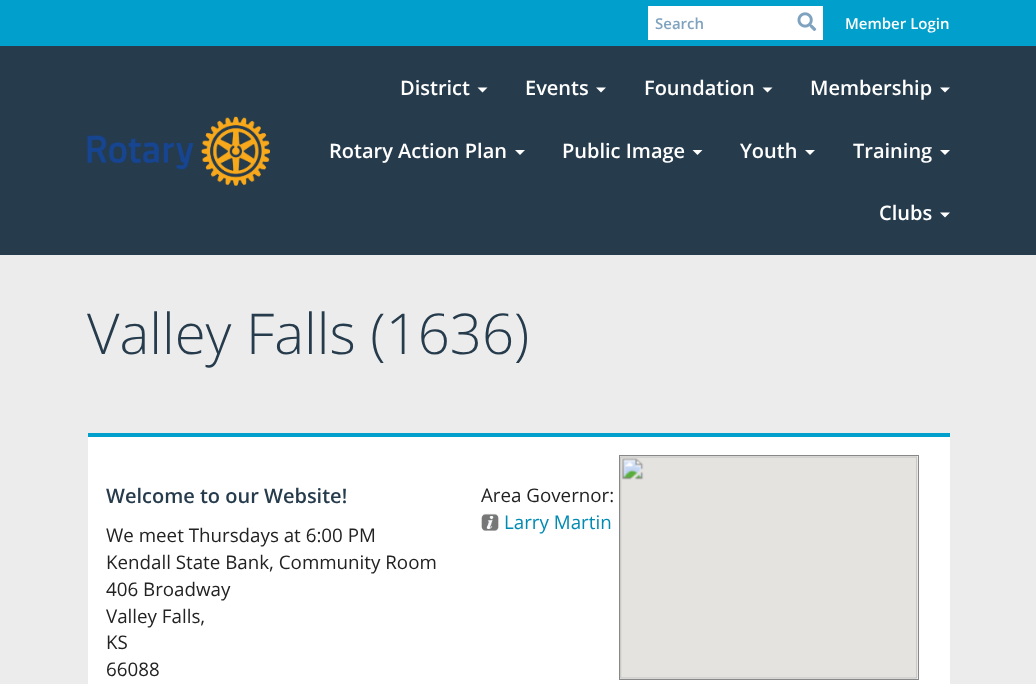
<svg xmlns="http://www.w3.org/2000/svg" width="1036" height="684">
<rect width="100%" height="100%" fill="#ececec"/>
<rect width="1036" height="46" fill="#019fcb"/>
<rect x="648" y="6" width="175" height="34" fill="#fff"/>
<text x="655" y="29" style="font-family:Open Sans;font-size:15px;font-weight:600;fill:#7fa2bf">Search</text>
<image x="797" y="12" width="20" height="19" href="media/1.png"/>
<text x="845" y="29" style="font-family:Open Sans;font-size:15px;font-weight:600;fill:#fff">Member Login</text>
<rect y="46" width="1036" height="209" fill="#263b4c"/>
<image x="87" y="116" width="183" height="70" href="media/2.png"/>
<text x="400" y="95" style="font-family:Open Sans;font-size:20px;font-weight:600;fill:#fff">District</text>
<path d="M477.5 87.5h10l-5 5z" fill="#fff"/>
<text x="525" y="95" style="font-family:Open Sans;font-size:20px;font-weight:600;fill:#fff">Events</text>
<path d="M596 87.5h10l-5 5z" fill="#fff"/>
<text x="644" y="95" style="font-family:Open Sans;font-size:20px;font-weight:600;fill:#fff">Foundation</text>
<path d="M762.5 87.5h10l-5 5z" fill="#fff"/>
<text x="810" y="95" style="font-family:Open Sans;font-size:20px;font-weight:600;fill:#fff">Membership</text>
<path d="M940 87.5h10l-5 5z" fill="#fff"/>
<text x="329" y="158" style="font-family:Open Sans;font-size:20px;font-weight:600;fill:#fff">Rotary Action Plan</text>
<path d="M515 150h10l-5 5z" fill="#fff"/>
<text x="562" y="158" style="font-family:Open Sans;font-size:20px;font-weight:600;fill:#fff">Public Image</text>
<path d="M692.5 150h10l-5 5z" fill="#fff"/>
<text x="740" y="158" style="font-family:Open Sans;font-size:20px;font-weight:600;fill:#fff">Youth</text>
<path d="M805 150h10l-5 5z" fill="#fff"/>
<text x="853" y="158" style="font-family:Open Sans;font-size:20px;font-weight:600;fill:#fff">Training</text>
<path d="M940 150h10l-5 5z" fill="#fff"/>
<text x="879" y="220" style="font-family:Open Sans;font-size:20px;font-weight:600;fill:#fff">Clubs</text>
<path d="M940 212.5h10l-5 5z" fill="#fff"/>
<text x="87" y="354" style="font-family:Open Sans;font-size:56.25px;font-weight:300;fill:#263b4c">Valley Falls (1636)</text>
<rect x="88" y="437" width="862" height="247" fill="#fff"/>
<rect x="88" y="433" width="862" height="4" fill="#019fcb"/>
<text x="106" y="503" style="font-family:Open Sans;font-size:20px;font-weight:600;fill:#263b4c">Welcome to our Website!</text>
<text x="106" y="542" style="font-family:Open Sans;font-size:18.75px;fill:#222">We meet Thursdays at 6:00 PM</text>
<text x="106" y="569" style="font-family:Open Sans;font-size:18.75px;fill:#222">Kendall State Bank, Community Room</text>
<text x="106" y="596" style="font-family:Open Sans;font-size:18.75px;fill:#222">406 Broadway</text>
<text x="106" y="623" style="font-family:Open Sans;font-size:18.75px;fill:#222">Valley Falls,</text>
<text x="106" y="649" style="font-family:Open Sans;font-size:18.75px;fill:#222">KS</text>
<text x="106" y="676" style="font-family:Open Sans;font-size:18.75px;fill:#222">66088</text>
<text x="481" y="502" style="font-family:Open Sans;font-size:18.75px;fill:#222">Area Governor:</text>
<image x="481" y="513" width="18" height="18" href="media/3.png"/>
<text x="504" y="529" style="font-family:Open Sans;font-size:18.75px;fill:#018bb2">Larry Martin</text>
<rect x="619.5" y="455.5" width="299" height="224" fill="none" stroke="#888"/>
<image x="620" y="456" width="298" height="223" href="media/4.png"/>
</svg>
